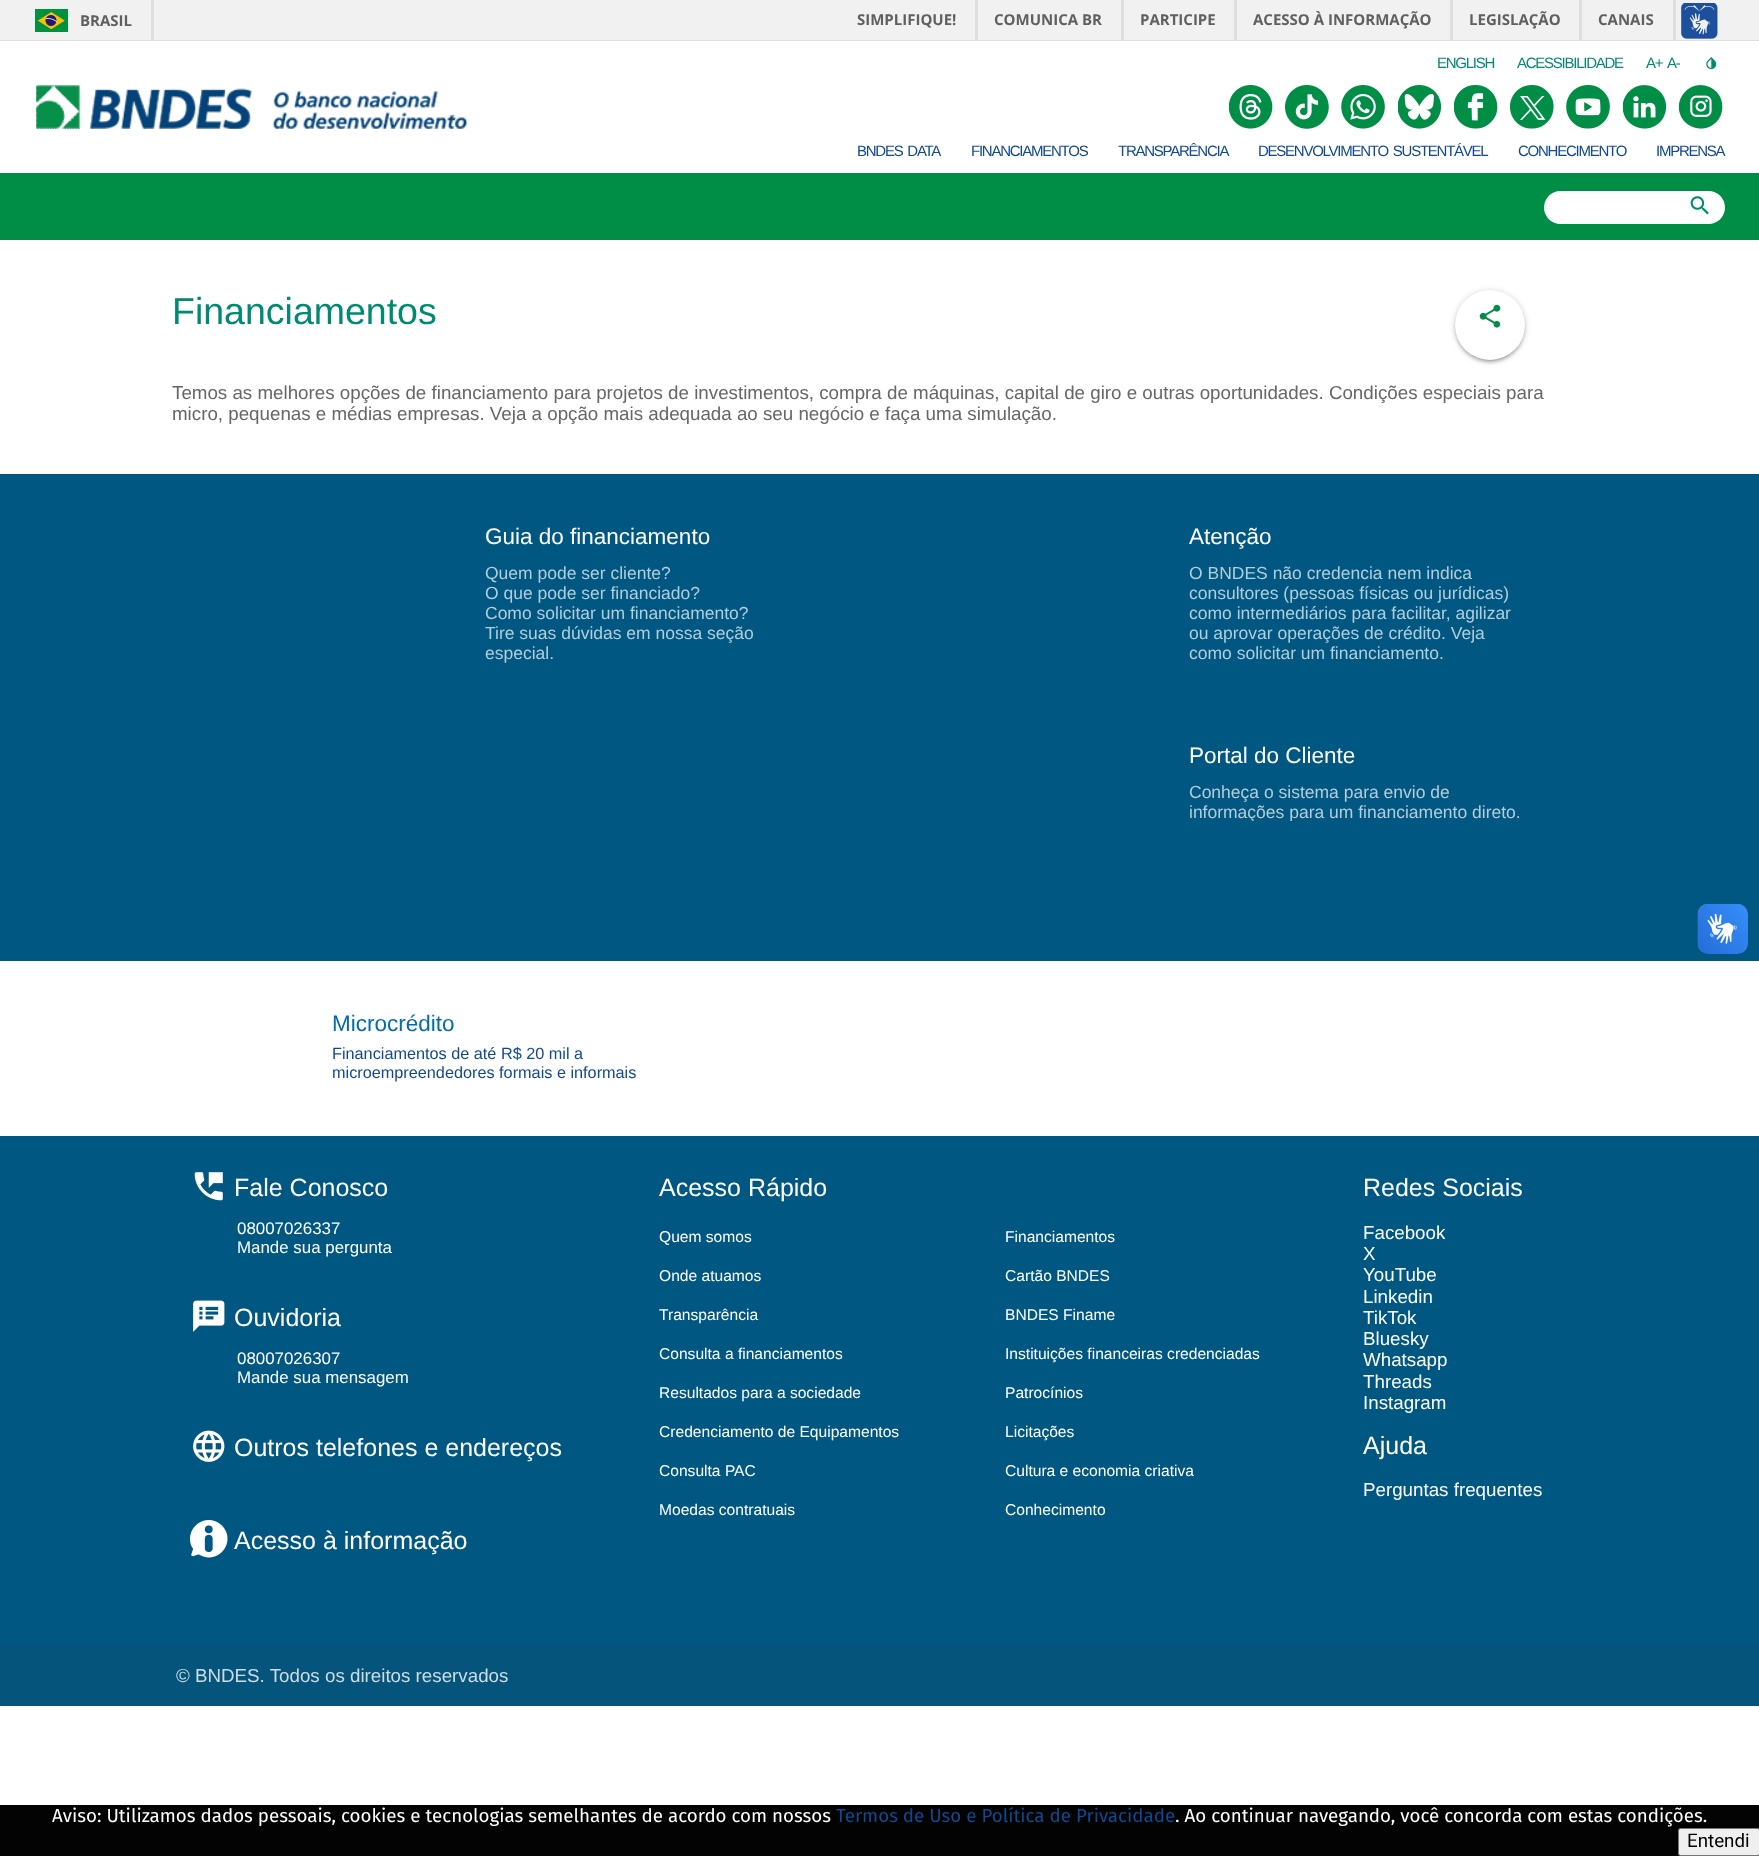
<svg xmlns="http://www.w3.org/2000/svg" width="1759" height="1856">
<defs>
<clipPath id="clip1"><rect x="1190" y="743" width="338" height="78"/></clipPath>
</defs>
<rect width="100%" height="100%" fill="#fff"/>
<rect width="1759" height="40" fill="#f1f1f1"/>
<rect y="40" width="1759" height="1" fill="#dfdfdf"/>
<rect x="151" width="3" height="40" fill="#dfdfdf"/>
<image x="35" y="9" width="33" height="23" href="media/1.png"/>
<text x="80" y="26" style="font-family:Open Sans;font-size:15px;font-weight:bold;fill:#606060">BRASIL</text>
<rect x="975" width="3" height="40" fill="#dfdfdf"/>
<text x="857" y="25" style="font-family:Open Sans;font-size:15px;font-weight:bold;fill:#606060">SIMPLIFIQUE!</text>
<rect x="1121" width="3" height="40" fill="#dfdfdf"/>
<text x="994" y="25" style="font-family:Open Sans;font-size:15px;font-weight:bold;fill:#606060">COMUNICA BR</text>
<rect x="1234" width="3" height="40" fill="#dfdfdf"/>
<text x="1140" y="25" style="font-family:Open Sans;font-size:15px;font-weight:bold;fill:#606060">PARTICIPE</text>
<rect x="1450" width="3" height="40" fill="#dfdfdf"/>
<text x="1253" y="25" style="font-family:Open Sans;font-size:15px;font-weight:bold;fill:#606060">ACESSO À INFORMAÇÃO</text>
<rect x="1579" width="3" height="40" fill="#dfdfdf"/>
<text x="1469" y="25" style="font-family:Open Sans;font-size:15px;font-weight:bold;fill:#606060">LEGISLAÇÃO</text>
<rect x="1673" width="3" height="40" fill="#dfdfdf"/>
<text x="1598" y="25" style="font-family:Open Sans;font-size:15px;font-weight:bold;fill:#606060">CANAIS</text>
<image x="1681" y="3" width="37" height="36" href="media/2.png"/>
<image x="36" y="85" width="432" height="44" href="media/3.png"/>
<text x="1437" y="68" style="font-family:Liberation Sans;font-size:15px;letter-spacing:-1.25px;fill:#008a71">ENGLISH</text>
<text x="1517" y="68" style="font-family:Liberation Sans;font-size:15px;letter-spacing:-1.25px;fill:#008a71">ACESSIBILIDADE</text>
<text x="1646" y="68" style="font-family:Liberation Sans;font-size:15px;letter-spacing:-1.25px;fill:#008a71">A+</text>
<text x="1667" y="68" style="font-family:Liberation Sans;font-size:15px;letter-spacing:-1.25px;fill:#008a71">A-</text>
<image x="1706" y="57" width="11" height="13" href="media/4.png"/>
<image x="1229" y="85" width="44" height="44" href="media/5.png"/>
<image x="1285" y="85" width="44" height="44" href="media/6.png"/>
<image x="1341" y="85" width="44" height="44" href="media/7.png"/>
<image x="1398" y="85" width="43" height="44" href="media/8.png"/>
<image x="1454" y="85" width="44" height="44" href="media/9.png"/>
<image x="1510" y="85" width="44" height="44" href="media/10.png"/>
<image x="1566" y="85" width="44" height="44" href="media/11.png"/>
<image x="1623" y="85" width="43" height="44" href="media/12.png"/>
<image x="1679" y="85" width="44" height="44" href="media/13.png"/>
<text x="857" y="156" word-spacing="2" style="font-family:Liberation Sans;font-size:15px;letter-spacing:-1.25px;fill:#10498f">BNDES DATA</text>
<text x="971" y="156" style="font-family:Liberation Sans;font-size:15px;letter-spacing:-1.25px;fill:#10498f">FINANCIAMENTOS</text>
<text x="1118" y="156" style="font-family:Liberation Sans;font-size:15px;letter-spacing:-1.25px;fill:#10498f">TRANSPARÊNCIA</text>
<text x="1258" y="156" word-spacing="2" style="font-family:Liberation Sans;font-size:15px;letter-spacing:-1.25px;fill:#10498f">DESENVOLVIMENTO SUSTENTÁVEL</text>
<text x="1518" y="156" style="font-family:Liberation Sans;font-size:15px;letter-spacing:-1.25px;fill:#10498f">CONHECIMENTO</text>
<text x="1656" y="156" style="font-family:Liberation Sans;font-size:15px;letter-spacing:-1.25px;fill:#10498f">IMPRENSA</text>
<rect y="173" width="1759" height="67" fill="#008e47"/>
<rect x="1544" y="191" width="181" height="33" rx="16.5" fill="#fff"/>
<image x="1690" y="196" width="19" height="19" href="media/14.png"/>
<text x="172" y="324" style="font-family:Liberation Sans;font-size:37.5px;fill:#008a71">Financiamentos</text>
<rect x="1455" y="291" width="70" height="70" rx="35" fill="#00000033" filter="blur(3px)"/>
<rect x="1458" y="296" width="65" height="65" rx="32.5" fill="#0000001f" filter="blur(0.5px)"/>
<rect x="1455" y="293" width="70" height="70" rx="35" fill="#00000024" filter="blur(1px)"/>
<circle cx="1490" cy="325" r="35" fill="#fff"/>
<image x="1479" y="304" width="22" height="24" href="media/15.png"/>
<text x="172" y="399" style="font-family:Liberation Sans;font-size:18.75px;fill:#666">Temos as melhores opções de financiamento para projetos de investimentos, compra de máquinas, capital de giro e outras oportunidades. Condições especiais para</text>
<text x="172" y="420" style="font-family:Liberation Sans;font-size:18.75px;fill:#666">micro, pequenas e médias empresas. Veja a opção mais adequada ao seu negócio e faça uma simulação.</text>
<rect y="474" width="1759" height="487" fill="#005782"/>
<text x="485" y="544" style="font-family:Liberation Sans;font-size:22.5px;fill:#fff">Guia do financiamento</text>
<text x="485" y="579" style="font-family:Liberation Sans;font-size:17.5px;fill:#b3cdda">Quem pode ser cliente?</text>
<text x="485" y="599" style="font-family:Liberation Sans;font-size:17.5px;fill:#b3cdda">O que pode ser financiado?</text>
<text x="485" y="619" style="font-family:Liberation Sans;font-size:17.5px;fill:#b3cdda">Como solicitar um financiamento?</text>
<text x="485" y="639" style="font-family:Liberation Sans;font-size:17.5px;fill:#b3cdda">Tire suas dúvidas em nossa seção</text>
<text x="485" y="659" style="font-family:Liberation Sans;font-size:17.5px;fill:#b3cdda">especial.</text>
<text x="1189" y="544" style="font-family:Liberation Sans;font-size:22.5px;fill:#fff">Atenção</text>
<text x="1189" y="579" style="font-family:Liberation Sans;font-size:17.5px;fill:#b3cdda">O BNDES não credencia nem indica</text>
<text x="1189" y="599" style="font-family:Liberation Sans;font-size:17.5px;fill:#b3cdda">consultores (pessoas físicas ou jurídicas)</text>
<text x="1189" y="619" style="font-family:Liberation Sans;font-size:17.5px;fill:#b3cdda">como intermediários para facilitar, agilizar</text>
<text x="1189" y="639" style="font-family:Liberation Sans;font-size:17.5px;fill:#b3cdda">ou aprovar operações de crédito. Veja</text>
<text x="1189" y="659" style="font-family:Liberation Sans;font-size:17.5px;fill:#b3cdda">como solicitar um financiamento.</text>
<text x="1189" y="763" style="font-family:Liberation Sans;font-size:22.5px;fill:#fff">Portal do Cliente</text>
<text x="1189" y="798" style="font-family:Liberation Sans;font-size:17.5px;fill:#b3cdda">Conheça o sistema para envio de</text>
<g clip-path="url(#clip1)">
<text x="1189" y="818" style="font-family:Liberation Sans;font-size:17.5px;fill:#b3cdda">informações para um financiamento direto.</text>
</g>
<text x="332" y="1031" style="font-family:Liberation Sans;font-size:22.5px;fill:#006daa">Microcrédito</text>
<text x="332" y="1059" style="font-family:Liberation Sans;font-size:16.25px;fill:#10498f">Financiamentos de até R$ 20 mil a</text>
<text x="332" y="1078" style="font-family:Liberation Sans;font-size:16.25px;fill:#10498f">microempreendedores formais e informais</text>
<image x="1697" y="903" width="51" height="51" href="media/16.png"/>
<image x="1698" y="904" width="50" height="50" href="media/17.png"/>
<rect y="1136" width="1759" height="508" fill="#005782"/>
<image x="194" y="1172" width="29" height="29" href="media/18.png"/>
<text x="234" y="1196" style="font-family:Liberation Sans;font-size:25px;fill:#fff">Fale Conosco</text>
<text x="237" y="1234" style="font-family:Liberation Sans;font-size:16.9px;fill:#fff">08007026337</text>
<text x="237" y="1253" style="font-family:Liberation Sans;font-size:16.9px;fill:#fff">Mande sua pergunta</text>
<image x="193" y="1300" width="32" height="32" href="media/19.png"/>
<text x="234" y="1326" style="font-family:Liberation Sans;font-size:25px;fill:#fff">Ouvidoria</text>
<text x="237" y="1364" style="font-family:Liberation Sans;font-size:16.9px;fill:#fff">08007026307</text>
<text x="237" y="1383" style="font-family:Liberation Sans;font-size:16.9px;fill:#fff">Mande sua mensagem</text>
<image x="193" y="1430" width="32" height="32" href="media/20.png"/>
<text x="234" y="1456" style="font-family:Liberation Sans;font-size:25px;fill:#fff">Outros telefones e endereços</text>
<image x="190" y="1520" width="38" height="38" href="media/21.png"/>
<text x="234" y="1549" style="font-family:Liberation Sans;font-size:25px;fill:#fff">Acesso à informação</text>
<text x="659" y="1196" style="font-family:Liberation Sans;font-size:25px;fill:#fff">Acesso Rápido</text>
<text x="659" y="1242" style="font-family:Liberation Sans;font-size:15.6px;fill:#fff">Quem somos</text>
<text x="1005" y="1242" style="font-family:Liberation Sans;font-size:15.6px;fill:#fff">Financiamentos</text>
<text x="659" y="1281" style="font-family:Liberation Sans;font-size:15.6px;fill:#fff">Onde atuamos</text>
<text x="1005" y="1281" style="font-family:Liberation Sans;font-size:15.6px;fill:#fff">Cartão BNDES</text>
<text x="659" y="1320" style="font-family:Liberation Sans;font-size:15.6px;fill:#fff">Transparência</text>
<text x="1005" y="1320" style="font-family:Liberation Sans;font-size:15.6px;fill:#fff">BNDES Finame</text>
<text x="659" y="1359" style="font-family:Liberation Sans;font-size:15.6px;fill:#fff">Consulta a financiamentos</text>
<text x="1005" y="1359" style="font-family:Liberation Sans;font-size:15.6px;fill:#fff">Instituições financeiras credenciadas</text>
<text x="659" y="1398" style="font-family:Liberation Sans;font-size:15.6px;fill:#fff">Resultados para a sociedade</text>
<text x="1005" y="1398" style="font-family:Liberation Sans;font-size:15.6px;fill:#fff">Patrocínios</text>
<text x="659" y="1437" style="font-family:Liberation Sans;font-size:15.6px;fill:#fff">Credenciamento de Equipamentos</text>
<text x="1005" y="1437" style="font-family:Liberation Sans;font-size:15.6px;fill:#fff">Licitações</text>
<text x="659" y="1476" style="font-family:Liberation Sans;font-size:15.6px;fill:#fff">Consulta PAC</text>
<text x="1005" y="1476" style="font-family:Liberation Sans;font-size:15.6px;fill:#fff">Cultura e economia criativa</text>
<text x="659" y="1515" style="font-family:Liberation Sans;font-size:15.6px;fill:#fff">Moedas contratuais</text>
<text x="1005" y="1515" style="font-family:Liberation Sans;font-size:15.6px;fill:#fff">Conhecimento</text>
<text x="1363" y="1196" style="font-family:Liberation Sans;font-size:25px;fill:#fff">Redes Sociais</text>
<text x="1363" y="1239" style="font-family:Liberation Sans;font-size:18.75px;fill:#fff">Facebook</text>
<text x="1363" y="1260" style="font-family:Liberation Sans;font-size:18.75px;fill:#fff">X</text>
<text x="1363" y="1281" style="font-family:Liberation Sans;font-size:18.75px;fill:#fff">YouTube</text>
<text x="1363" y="1303" style="font-family:Liberation Sans;font-size:18.75px;fill:#fff">Linkedin</text>
<text x="1363" y="1324" style="font-family:Liberation Sans;font-size:18.75px;fill:#fff">TikTok</text>
<text x="1363" y="1345" style="font-family:Liberation Sans;font-size:18.75px;fill:#fff">Bluesky</text>
<text x="1363" y="1366" style="font-family:Liberation Sans;font-size:18.75px;fill:#fff">Whatsapp</text>
<text x="1363" y="1388" style="font-family:Liberation Sans;font-size:18.75px;fill:#fff">Threads</text>
<text x="1363" y="1409" style="font-family:Liberation Sans;font-size:18.75px;fill:#fff">Instagram</text>
<text x="1363" y="1454" style="font-family:Liberation Sans;font-size:25px;fill:#fff">Ajuda</text>
<text x="1363" y="1496" style="font-family:Liberation Sans;font-size:18.75px;fill:#fff">Perguntas frequentes</text>
<rect y="1644" width="1759" height="62" fill="#04547c"/>
<text x="176" y="1682" style="font-family:Liberation Sans;font-size:18.75px;fill:#cddde5">© BNDES. Todos os direitos reservados</text>
<rect y="1805" width="1759" height="51" fill="#030303"/>
<text x="52" y="1822" style="font-family:Fira Sans;font-size:18.75px;fill:#fff">Aviso: Utilizamos dados pessoais, cookies e tecnologias semelhantes de acordo com nossos</text>
<text x="836" y="1822" style="font-family:Fira Sans;font-size:18.75px;fill:#10498f">Termos de Uso e Política de Privacidade</text>
<text x="1175" y="1822" style="font-family:Fira Sans;font-size:18.75px;fill:#fff">. Ao continuar navegando, você concorda com estas condições.</text>
<rect x="1678.5" y="1828.5" width="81" height="27" rx="2" fill="#efefef" stroke="#767676"/>
<text x="1687" y="1847" style="font-family:Roboto;font-size:18.75px;fill:#000">Entendi</text>
</svg>
